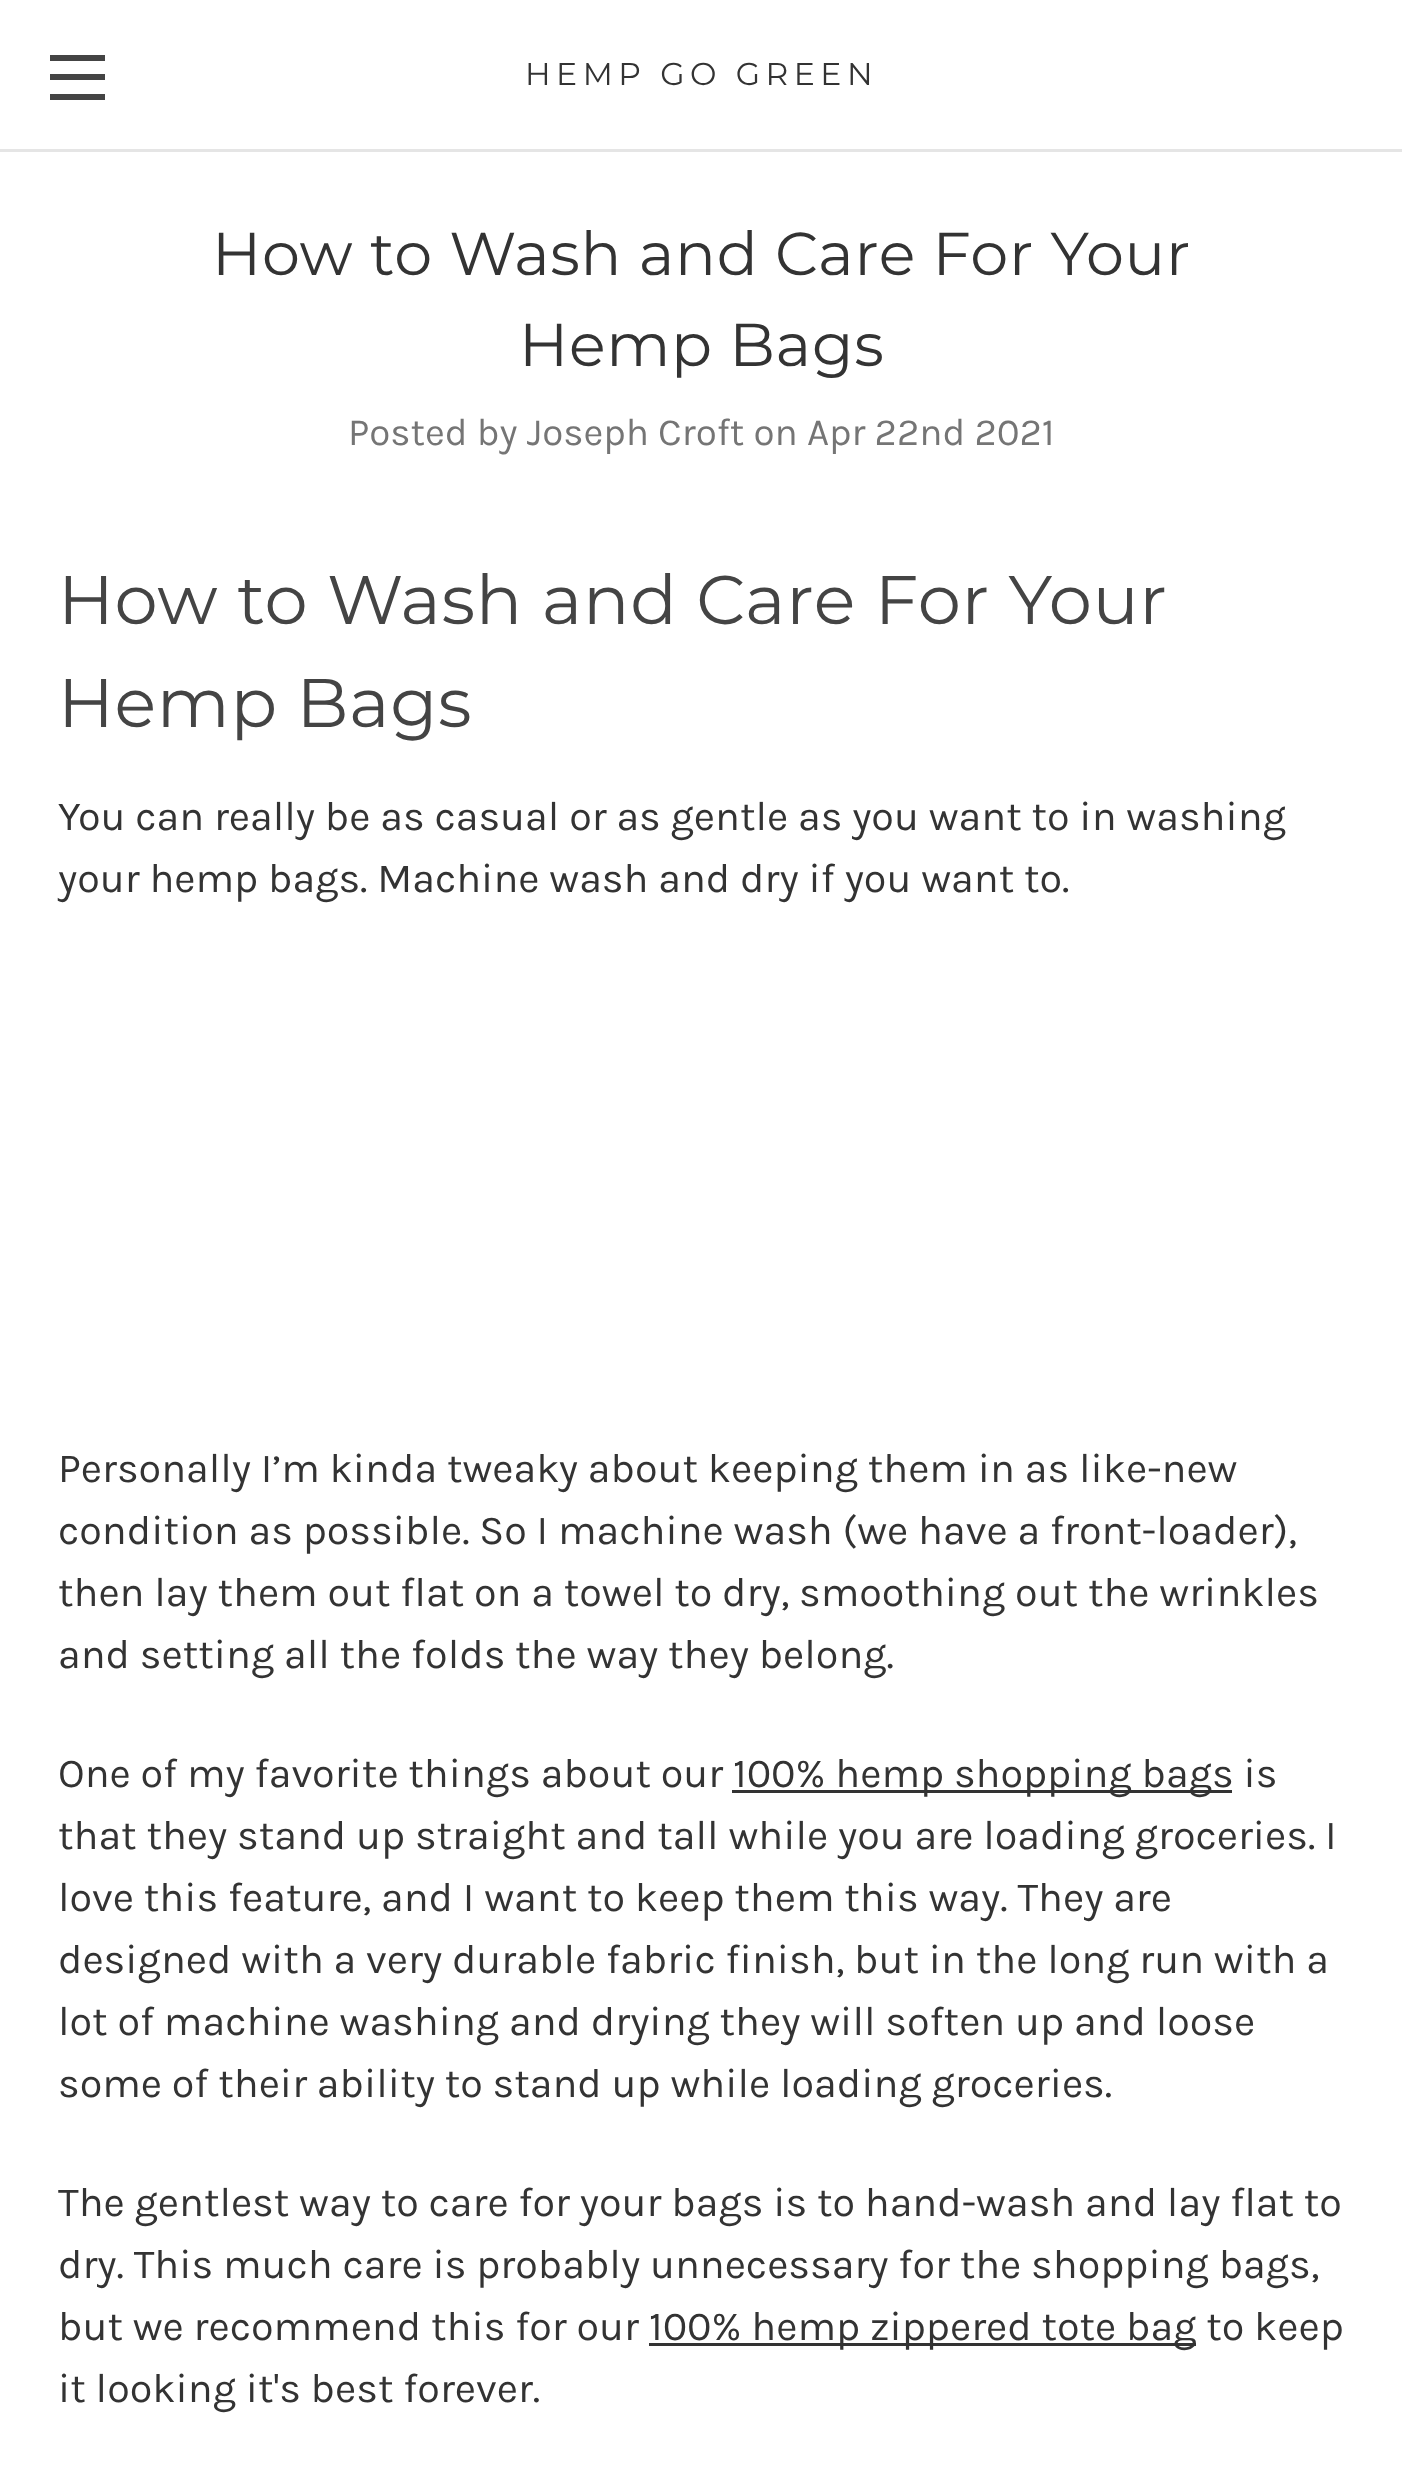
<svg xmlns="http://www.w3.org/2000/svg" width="1402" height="2478">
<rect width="100%" height="100%" fill="#fff"/>
<rect y="149" width="1402" height="3" fill="#e5e5e5"/>
<rect x="50" y="74" width="55" height="6" fill="#444"/>
<rect x="50" y="55" width="55" height="6" fill="#444"/>
<rect x="50" y="94" width="55" height="6" fill="#444"/>
<text x="525" y="85" style="font-family:Montserrat;font-size:31.5px;letter-spacing:5.5px;fill:#333">HEMP GO GREEN</text>
<text x="212" y="275" style="font-family:Montserrat;font-size:60.5px;letter-spacing:0.7px;fill:#333">How to Wash and Care For Your</text>
<text x="519" y="366" style="font-family:Montserrat;font-size:60.5px;letter-spacing:0.7px;fill:#333">Hemp Bags</text>
<text x="348" y="445" style="font-family:Karla;font-size:38.5px;fill:#757575">Posted by Joseph Croft on Apr 22nd 2021</text>
<text x="58" y="624" style="font-family:Montserrat;font-size:68.75px;letter-spacing:0.7px;fill:#444">How to Wash and Care For Your</text>
<text x="58" y="727" style="font-family:Montserrat;font-size:68.75px;letter-spacing:0.7px;fill:#444">Hemp Bags</text>
<text x="58" y="830" style="font-family:Karla;font-size:41.25px;fill:#333">You can really be as casual or as gentle as you want to in washing</text>
<text x="58" y="892" style="font-family:Karla;font-size:41.25px;fill:#333">your hemp bags. Machine wash and dry if you want to.</text>
<text x="58" y="1482" style="font-family:Karla;font-size:41.25px;fill:#333">Personally I’m kinda tweaky about keeping them in as like-new</text>
<text x="58" y="1544" style="font-family:Karla;font-size:41.25px;fill:#333">condition as possible. So I machine wash (we have a front-loader),</text>
<text x="58" y="1606" style="font-family:Karla;font-size:41.25px;fill:#333">then lay them out flat on a towel to dry, smoothing out the wrinkles</text>
<text x="58" y="1668" style="font-family:Karla;font-size:41.25px;fill:#333">and setting all the folds the way they belong.</text>
<text x="58" y="1787" style="font-family:Karla;font-size:41.25px;fill:#333">One of my favorite things about our</text>
<rect x="732" y="1790" width="500" height="3" fill="#333"/>
<text x="733" y="1787" style="font-family:Karla;font-size:41.25px;fill:#333">100% hemp shopping bags is</text>
<text x="58" y="1849" style="font-family:Karla;font-size:41.25px;fill:#333">that they stand up straight and tall while you are loading groceries. I</text>
<text x="58" y="1911" style="font-family:Karla;font-size:41.25px;fill:#333">love this feature, and I want to keep them this way. They are</text>
<text x="58" y="1973" style="font-family:Karla;font-size:41.25px;fill:#333">designed with a very durable fabric finish, but in the long run with a</text>
<text x="58" y="2035" style="font-family:Karla;font-size:41.25px;fill:#333">lot of machine washing and drying they will soften up and loose</text>
<text x="58" y="2097" style="font-family:Karla;font-size:41.25px;fill:#333">some of their ability to stand up while loading groceries.</text>
<text x="58" y="2216" style="font-family:Karla;font-size:41.25px;fill:#333">The gentlest way to care for your bags is to hand-wash and lay flat to</text>
<text x="58" y="2278" style="font-family:Karla;font-size:41.25px;fill:#333">dry. This much care is probably unnecessary for the shopping bags,</text>
<text x="58" y="2340" style="font-family:Karla;font-size:41.25px;fill:#333">but we recommend this for our</text>
<rect x="649" y="2343" width="547" height="3" fill="#333"/>
<text x="649" y="2340" style="font-family:Karla;font-size:41.25px;fill:#333">100% hemp zippered tote bag to keep</text>
<text x="58" y="2402" style="font-family:Karla;font-size:41.25px;fill:#333">it looking it's best forever.</text>
</svg>
